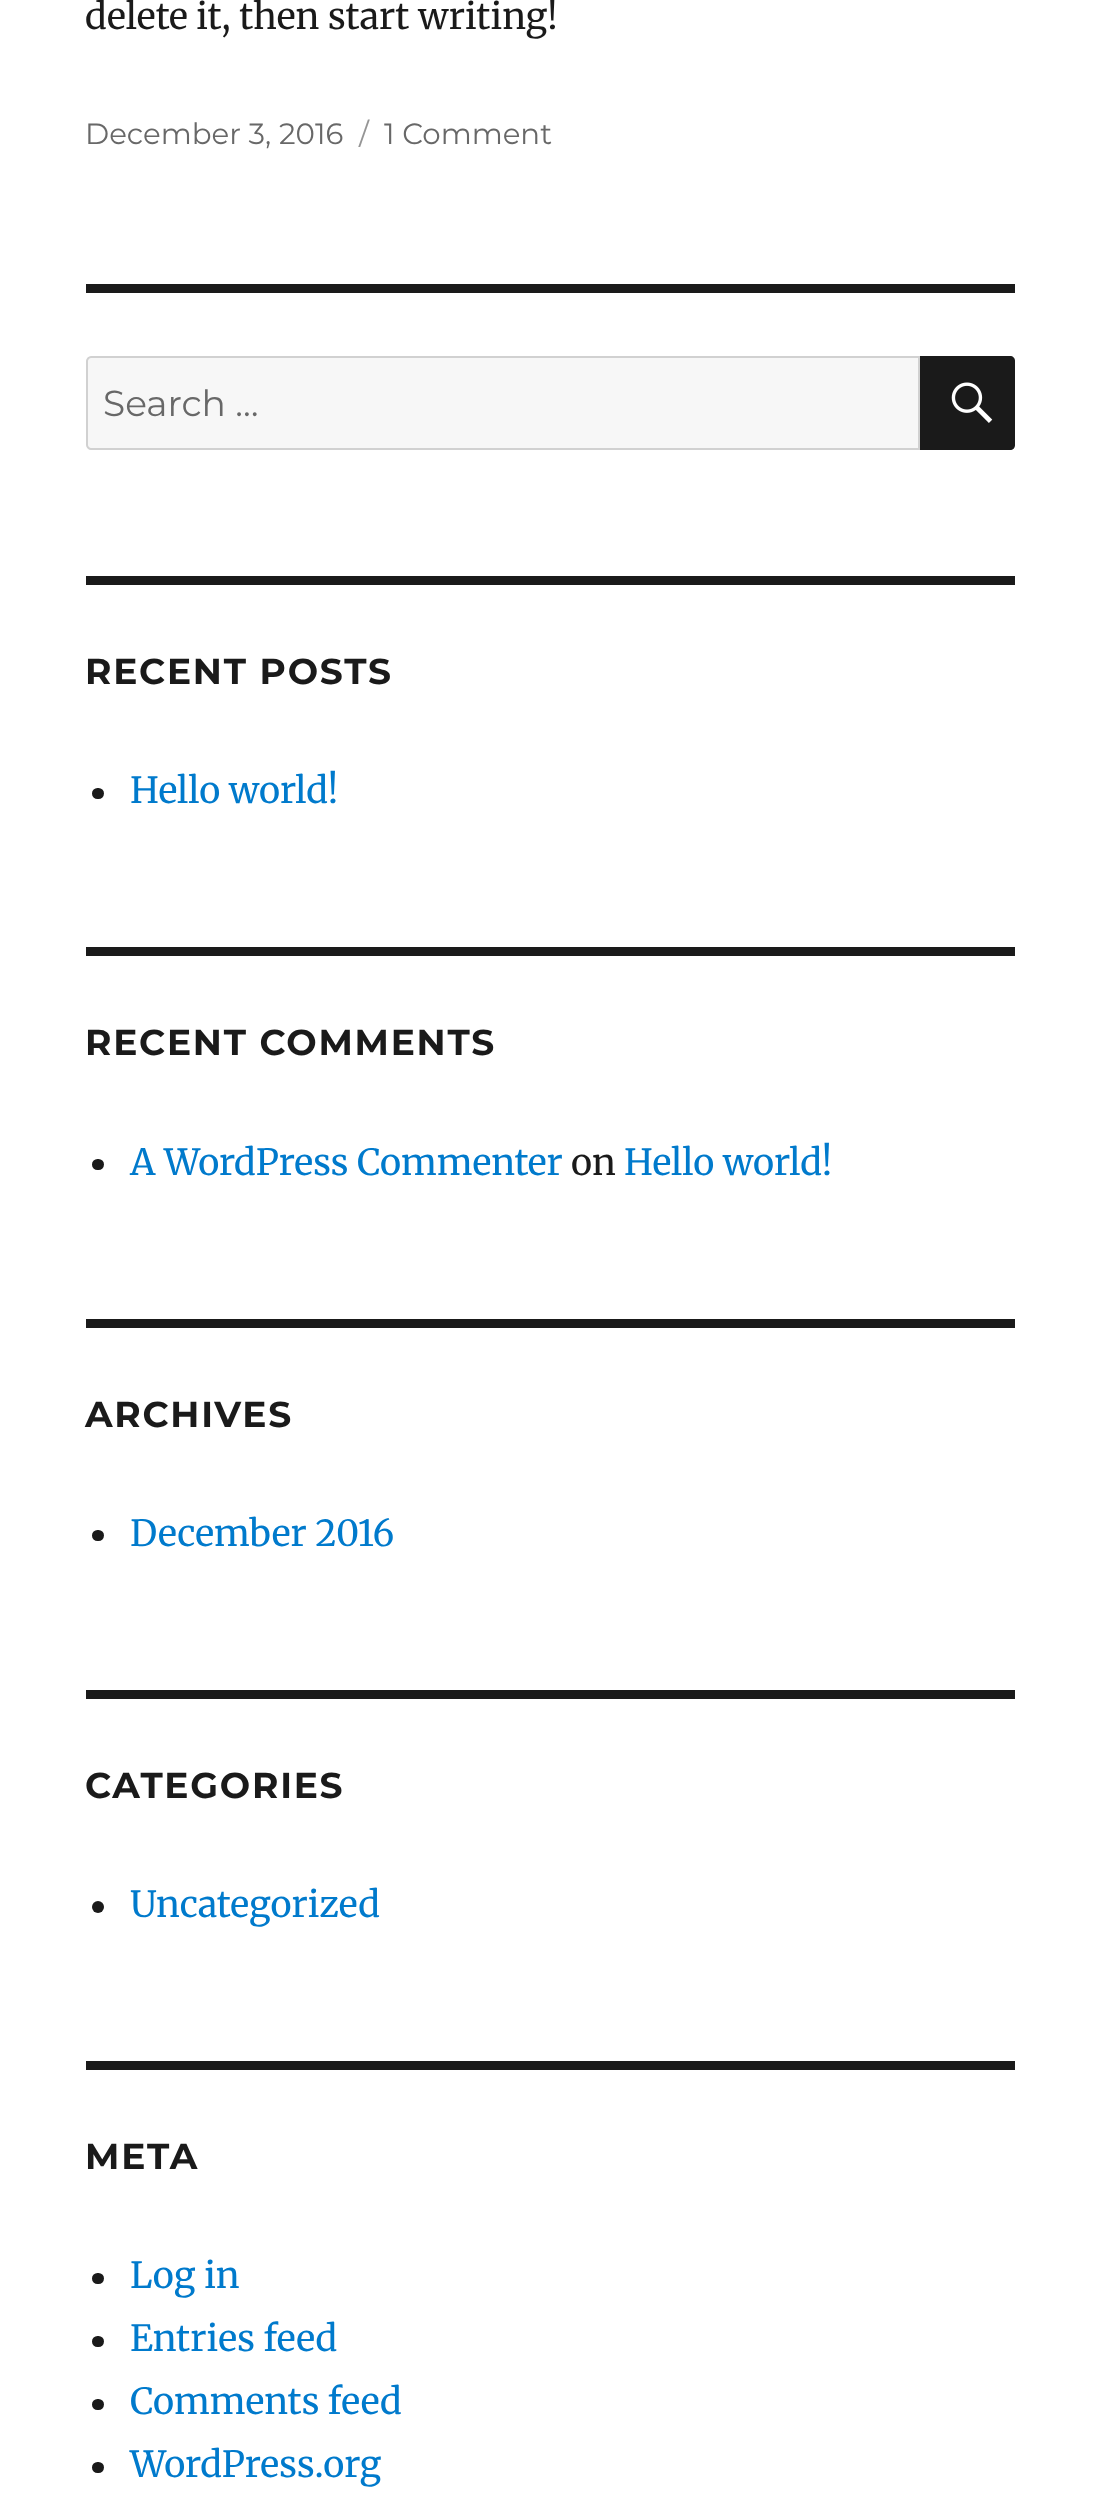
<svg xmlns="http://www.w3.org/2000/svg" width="1099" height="2499">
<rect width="100%" height="100%" fill="#fff"/>
<text x="85" y="29" style="font-family:Merriweather;font-size:36px;fill:#1a1a1a">delete it, then start writing!</text>
<text x="85" y="144" style="font-family:Montserrat;font-size:29.25px;fill:#686868">December 3, 2016</text>
<text x="359" y="144" style="font-family:Montserrat;font-size:29.25px;fill:#959595">/</text>
<text x="384" y="144" style="font-family:Montserrat;font-size:29.25px;fill:#686868">1 Comment</text>
<rect x="86" y="284" width="929" height="9" fill="#1a1a1a"/>
<path d="M91 357h828v92h-828c-2 0-4-2-4-4v-84c0-2 2-4 4-4z" fill="#f7f7f7" stroke="#d1d1d1" stroke-width="2"/>
<text x="103" y="416" style="font-family:Montserrat;font-size:36px;fill:#686868">Search …</text>
<path d="M920 356h90c3 0 5 2 5 5v84c0 3-2 5-5 5h-90z" fill="#1a1a1a"/>
<image x="951" y="382" width="42" height="41" href="media/1.png"/>
<rect x="86" y="576" width="929" height="9" fill="#1a1a1a"/>
<text x="85" y="684" style="font-family:Montserrat;font-size:36px;font-weight:bold;letter-spacing:1.75px;fill:#1a1a1a">RECENT POSTS</text>
<rect x="92" y="788" width="12" height="11" rx="5.5" fill="#1a1a1a"/>
<text x="130" y="803" style="font-family:Merriweather;font-size:36px;fill:#007acc">Hello world!</text>
<rect x="86" y="947" width="929" height="9" fill="#1a1a1a"/>
<text x="85" y="1055" style="font-family:Montserrat;font-size:36px;font-weight:bold;letter-spacing:1.75px;fill:#1a1a1a">RECENT COMMENTS</text>
<rect x="92" y="1159" width="12" height="11" rx="5.5" fill="#1a1a1a"/>
<text x="130" y="1175" style="font-family:Merriweather;font-size:36px;fill:#007acc">A WordPress Commenter</text>
<text x="571" y="1175" style="font-family:Merriweather;font-size:36px;fill:#1a1a1a">on</text>
<text x="624" y="1175" style="font-family:Merriweather;font-size:36px;fill:#007acc">Hello world!</text>
<rect x="86" y="1319" width="929" height="9" fill="#1a1a1a"/>
<text x="85" y="1427" style="font-family:Montserrat;font-size:36px;font-weight:bold;letter-spacing:1.75px;fill:#1a1a1a">ARCHIVES</text>
<rect x="92" y="1530" width="12" height="11" rx="5.5" fill="#1a1a1a"/>
<text x="130" y="1546" style="font-family:Merriweather;font-size:36px;fill:#007acc">December 2016</text>
<rect x="86" y="1690" width="929" height="9" fill="#1a1a1a"/>
<text x="85" y="1798" style="font-family:Montserrat;font-size:36px;font-weight:bold;letter-spacing:1.75px;fill:#1a1a1a">CATEGORIES</text>
<circle cx="98" cy="1907" r="6" fill="#1a1a1a"/>
<text x="130" y="1917" style="font-family:Merriweather;font-size:36px;fill:#007acc">Uncategorized</text>
<rect x="86" y="2061" width="929" height="9" fill="#1a1a1a"/>
<text x="85" y="2169" style="font-family:Montserrat;font-size:36px;font-weight:bold;letter-spacing:1.75px;fill:#1a1a1a">META</text>
<rect x="92" y="2273" width="12" height="11" rx="5.5" fill="#1a1a1a"/>
<text x="130" y="2288" style="font-family:Merriweather;font-size:36px;fill:#007acc">Log in</text>
<rect x="92" y="2336" width="12" height="11" rx="5.5" fill="#1a1a1a"/>
<text x="130" y="2351" style="font-family:Merriweather;font-size:36px;fill:#007acc">Entries feed</text>
<rect x="92" y="2399" width="12" height="11" rx="5.5" fill="#1a1a1a"/>
<text x="130" y="2414" style="font-family:Merriweather;font-size:36px;fill:#007acc">Comments feed</text>
<rect x="92" y="2462" width="12" height="11" rx="5.5" fill="#1a1a1a"/>
<text x="130" y="2477" style="font-family:Merriweather;font-size:36px;fill:#007acc">WordPress.org</text>
</svg>
